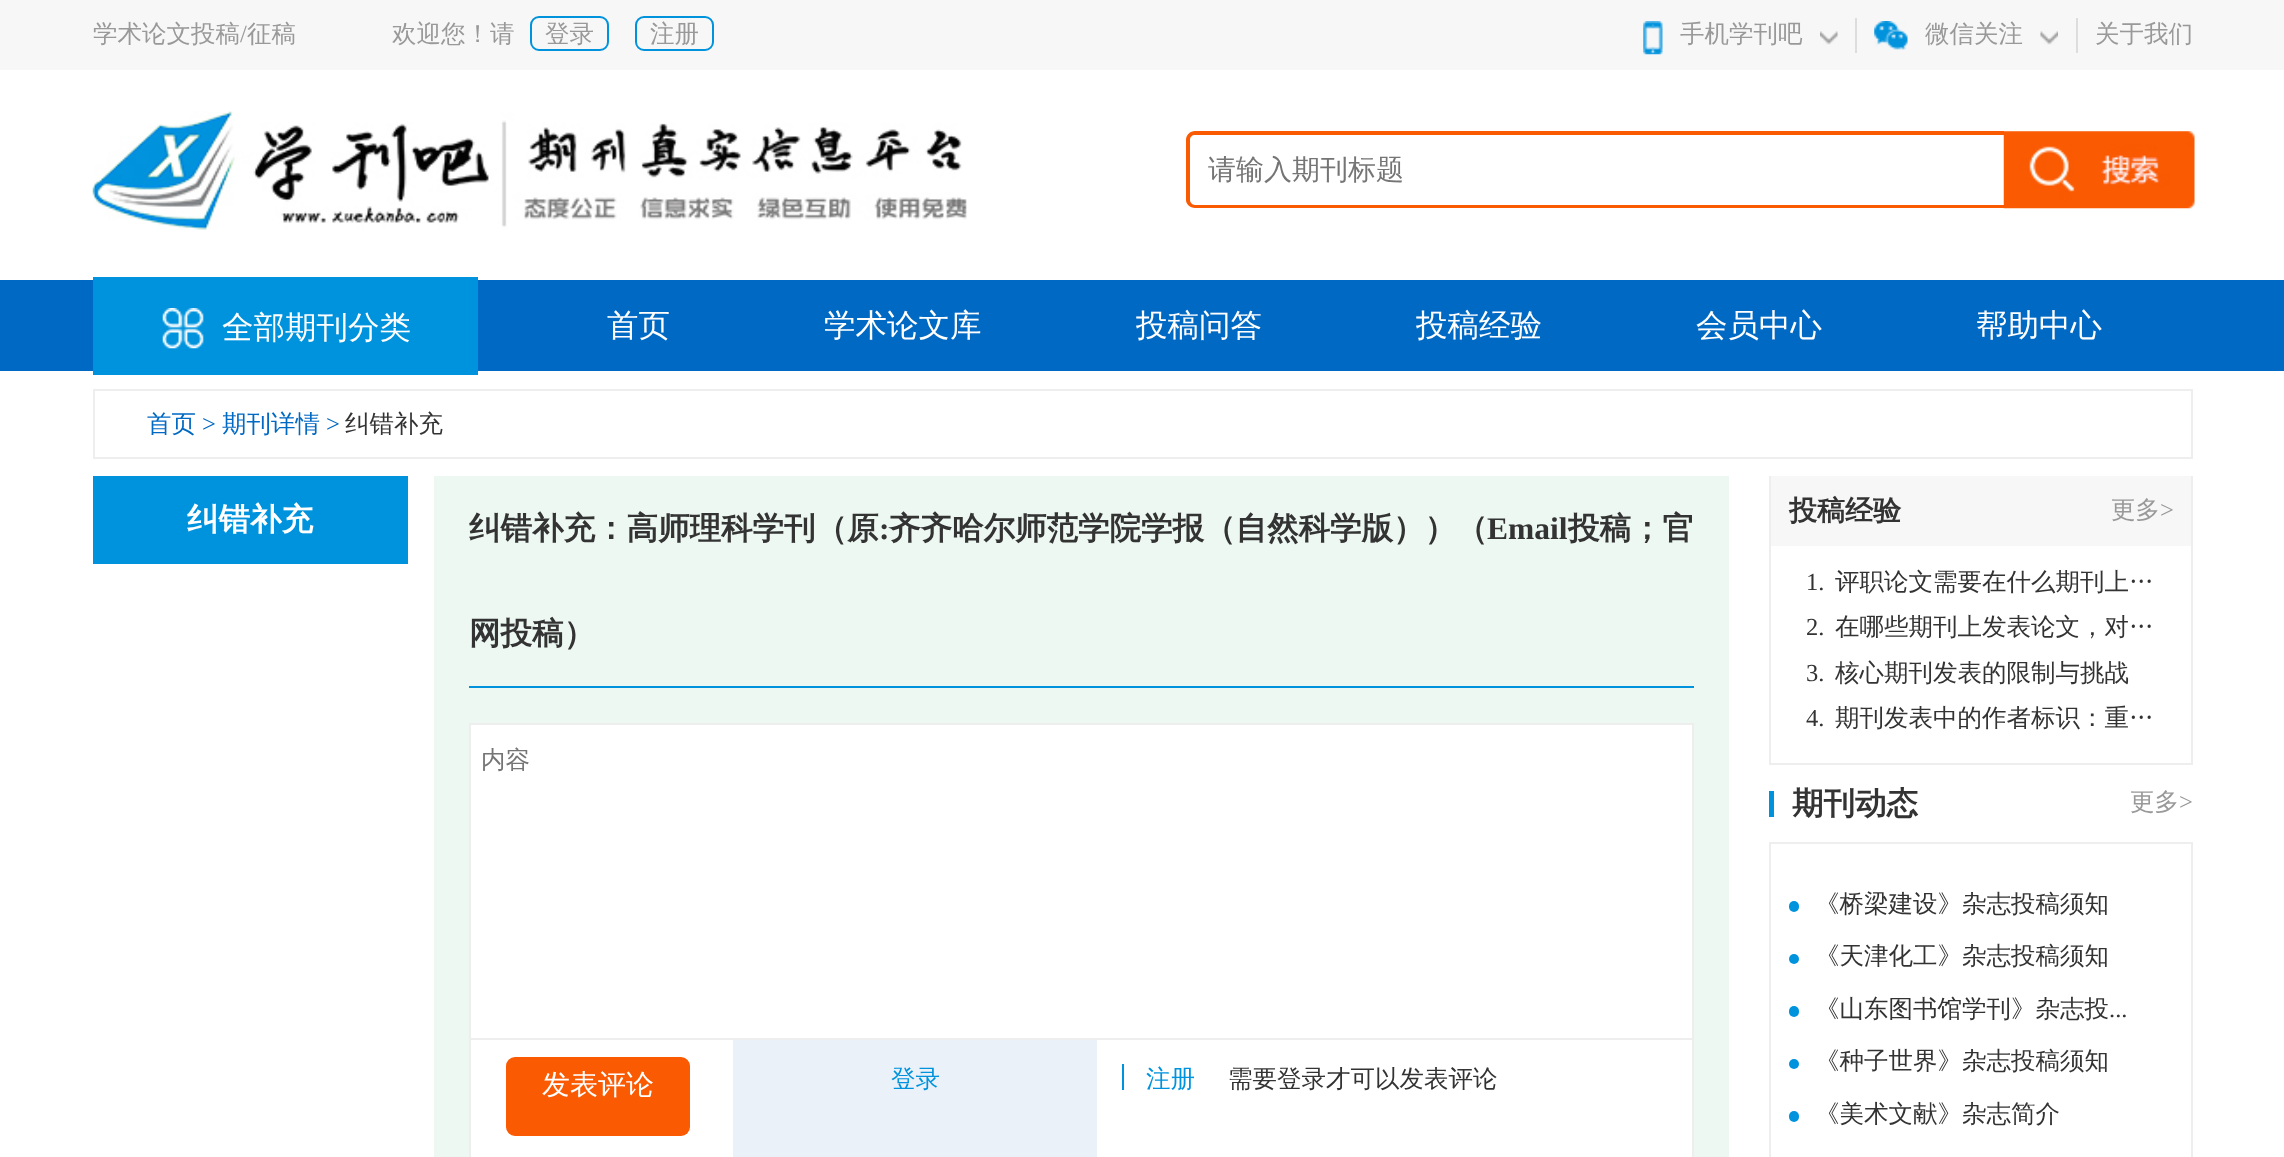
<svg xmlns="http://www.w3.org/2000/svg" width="2284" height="1157">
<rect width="100%" height="100%" fill="#fff"/>
<rect width="2284" height="70" fill="#f7f7f7"/>
<text x="93" y="42" style="font-family:WenQuanYi Zen Hei;font-size:24.5px;font-weight:500;fill:#999">学术论文投稿</text>
<text x="240" y="42" style="font-family:Liberation Serif;font-size:24.5px;fill:#999">/</text>
<text x="247" y="42" style="font-family:WenQuanYi Zen Hei;font-size:24.5px;font-weight:500;fill:#999">征稿</text>
<text x="392" y="42" style="font-family:WenQuanYi Zen Hei;font-size:24.5px;font-weight:500;fill:#999">欢迎您！请</text>
<rect x="531" y="17" width="77" height="33" rx="8" fill="none" stroke="#0093dd" stroke-width="2"/>
<text x="545" y="42" style="font-family:WenQuanYi Zen Hei;font-size:24.5px;font-weight:500;fill:#999">登录</text>
<rect x="636" y="17" width="77" height="33" rx="8" fill="none" stroke="#0093dd" stroke-width="2"/>
<text x="650" y="42" style="font-family:WenQuanYi Zen Hei;font-size:24.5px;font-weight:500;fill:#999">注册</text>
<rect x="1855" y="18" width="2" height="35" fill="#ddd"/>
<image x="1643" y="21" width="20" height="34" href="media/1.png"/>
<text x="1680" y="42" style="font-family:WenQuanYi Zen Hei;font-size:24.5px;font-weight:500;fill:#999">手机学刊吧</text>
<image x="1820" y="31" width="18" height="14" href="media/2.png"/>
<rect x="2076" y="18" width="2" height="35" fill="#ddd"/>
<image x="1874" y="21" width="34" height="29" href="media/3.png"/>
<text x="1925" y="42" style="font-family:WenQuanYi Zen Hei;font-size:24.5px;font-weight:500;fill:#999">微信关注</text>
<image x="2040" y="31" width="18" height="14" href="media/4.png"/>
<text x="2095" y="42" style="font-family:WenQuanYi Zen Hei;font-size:24.5px;font-weight:500;fill:#999">关于我们</text>
<image x="92" y="111" width="875" height="119" href="media/5.png"/>
<path d="M1195 131h809v77h-809c-5 0-9-4-9-8v-60c0-5 4-9 9-9zm0 4h809v70h-809c-3 0-5-3-5-5v-60c0-3 2-5 5-5z" fill="#fa5a02" fill-rule="evenodd"/>
<text x="1208" y="179" style="font-family:WenQuanYi Zen Hei;font-size:28px;font-weight:500;fill:#757575">请输入期刊标题</text>
<image x="2003" y="131" width="192" height="78" href="media/6.png"/>
<rect y="280" width="2284" height="91" fill="#0069c3"/>
<rect x="93" y="277" width="385" height="98" fill="#0093dd"/>
<image x="162" y="308" width="42" height="41" href="media/7.png"/>
<text x="222" y="338" style="font-family:WenQuanYi Zen Hei;font-size:31.5px;font-weight:500;fill:#fff">全部期刊分类</text>
<text x="607" y="336" style="font-family:WenQuanYi Zen Hei;font-size:31.5px;font-weight:500;fill:#fff">首页</text>
<text x="824" y="336" style="font-family:WenQuanYi Zen Hei;font-size:31.5px;font-weight:500;fill:#fff">学术论文库</text>
<text x="1136" y="336" style="font-family:WenQuanYi Zen Hei;font-size:31.5px;font-weight:500;fill:#fff">投稿问答</text>
<text x="1416" y="336" style="font-family:WenQuanYi Zen Hei;font-size:31.5px;font-weight:500;fill:#fff">投稿经验</text>
<text x="1696" y="336" style="font-family:WenQuanYi Zen Hei;font-size:31.5px;font-weight:500;fill:#fff">会员中心</text>
<text x="1976" y="336" style="font-family:WenQuanYi Zen Hei;font-size:31.5px;font-weight:500;fill:#fff">帮助中心</text>
<rect x="94" y="390" width="2098" height="68" fill="none" stroke="#eee" stroke-width="2"/>
<text x="147" y="432" style="font-family:WenQuanYi Zen Hei;font-size:24.5px;font-weight:500;fill:#0069c3">首页</text>
<text x="202" y="432" style="font-family:Liberation Serif;font-size:24.5px;fill:#0069c3">&gt;</text>
<text x="222" y="432" style="font-family:WenQuanYi Zen Hei;font-size:24.5px;font-weight:500;fill:#0069c3">期刊详情</text>
<text x="326" y="432" style="font-family:Liberation Serif;font-size:24.5px;fill:#0069c3">&gt;</text>
<text x="345" y="432" style="font-family:WenQuanYi Zen Hei;font-size:24.5px;font-weight:500;fill:#333">纠错补充</text>
<rect x="93" y="476" width="315" height="88" fill="#0093dd"/>
<text x="187" y="530" style="font-family:WenQuanYi Zen Hei;font-size:31.5px;font-weight:bold;fill:#fff">纠错补充</text>
<rect x="434" y="476" width="1295" height="681" fill="#edf8f2"/>
<rect x="469" y="686" width="1225" height="2" fill="#0093dd"/>
<text x="469" y="539" style="font-family:WenQuanYi Zen Hei;font-size:31.5px;font-weight:bold;fill:#333">纠错补充：高师理科学刊（原</text>
<text x="879" y="539" style="font-family:Liberation Serif;font-size:31.5px;font-weight:bold;fill:#333">:</text>
<text x="889" y="539" style="font-family:WenQuanYi Zen Hei;font-size:31.5px;font-weight:bold;fill:#333">齐齐哈尔师范学院学报（自然科学版））（</text>
<text x="1487" y="539" style="font-family:Liberation Serif;font-size:31.5px;font-weight:bold;fill:#333">Email</text>
<text x="1568" y="539" style="font-family:WenQuanYi Zen Hei;font-size:31.5px;font-weight:bold;fill:#333">投稿；官</text>
<text x="469" y="644" style="font-family:WenQuanYi Zen Hei;font-size:31.5px;font-weight:bold;fill:#333">网投稿）</text>
<rect x="471" y="725" width="1221" height="313" fill="#fff"/>
<rect x="469" y="723" width="1225" height="2" fill="#eee"/>
<rect x="1692" y="723" width="2" height="315" fill="#eee"/>
<rect x="469" y="723" width="2" height="315" fill="#eee"/>
<text x="481" y="768" style="font-family:WenQuanYi Zen Hei;font-size:24.5px;font-weight:500;fill:#757575">内容</text>
<rect x="470" y="1039" width="1223" height="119" fill="#fff" stroke="#eee" stroke-width="2"/>
<rect x="506" y="1057" width="184" height="79" rx="9" fill="#fa5a02"/>
<text x="542" y="1094" style="font-family:WenQuanYi Zen Hei;font-size:28px;font-weight:500;fill:#fff">发表评论</text>
<rect x="733" y="1040" width="364" height="117" fill="#eaf1f9"/>
<text x="891" y="1087" style="font-family:WenQuanYi Zen Hei;font-size:24.5px;font-weight:500;fill:#0093dd">登录</text>
<rect x="1122" y="1064" width="2" height="26" fill="#0093dd"/>
<text x="1146" y="1087" style="font-family:WenQuanYi Zen Hei;font-size:24.5px;font-weight:500;fill:#0093dd">注册</text>
<text x="1228" y="1087" style="font-family:WenQuanYi Zen Hei;font-size:24.5px;font-weight:500;fill:#333">需要登录才可以发表评论</text>
<rect x="2191" y="476" width="2" height="289" fill="#eee"/>
<rect x="1769" y="763" width="424" height="2" fill="#eee"/>
<rect x="1769" y="476" width="2" height="289" fill="#eee"/>
<rect x="1771" y="476" width="420" height="70" fill="#f7f7f7"/>
<text x="1789" y="520" style="font-family:WenQuanYi Zen Hei;font-size:28px;font-weight:bold;fill:#333">投稿经验</text>
<text x="2111" y="518" style="font-family:WenQuanYi Zen Hei;font-size:24.5px;font-weight:500;fill:#999">更多</text>
<text x="2160" y="518" style="font-family:Liberation Serif;font-size:24.5px;fill:#999">&gt;</text>
<text x="1806" y="590" style="font-family:Liberation Serif;font-size:24.5px;fill:#333">1.</text>
<text x="1835" y="590" style="font-family:WenQuanYi Zen Hei;font-size:24.5px;font-weight:500;fill:#333">评职论文需要在什么期刊上…</text>
<text x="1806" y="635" style="font-family:Liberation Serif;font-size:24.5px;fill:#333">2.</text>
<text x="1835" y="635" style="font-family:WenQuanYi Zen Hei;font-size:24.5px;font-weight:500;fill:#333">在哪些期刊上发表论文，对…</text>
<text x="1806" y="681" style="font-family:Liberation Serif;font-size:24.5px;fill:#333">3.</text>
<text x="1835" y="681" style="font-family:WenQuanYi Zen Hei;font-size:24.5px;font-weight:500;fill:#333">核心期刊发表的限制与挑战</text>
<text x="1806" y="726" style="font-family:Liberation Serif;font-size:24.5px;fill:#333">4.</text>
<text x="1835" y="726" style="font-family:WenQuanYi Zen Hei;font-size:24.5px;font-weight:500;fill:#333">期刊发表中的作者标识：重…</text>
<rect x="1769" y="791" width="5" height="26" fill="#0093dd"/>
<text x="1792" y="814" style="font-family:WenQuanYi Zen Hei;font-size:31.5px;font-weight:bold;fill:#333">期刊动态</text>
<text x="2130" y="810" style="font-family:WenQuanYi Zen Hei;font-size:24.5px;font-weight:500;fill:#999">更多</text>
<text x="2179" y="810" style="font-family:Liberation Serif;font-size:24.5px;fill:#999">&gt;</text>
<rect x="1770" y="843" width="422" height="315" fill="none" stroke="#eee" stroke-width="2"/>
<rect x="1789" y="901" width="10" height="11" rx="5" fill="#0093dd"/>
<text x="1815" y="912" style="font-family:WenQuanYi Zen Hei;font-size:24.5px;font-weight:500;fill:#333">《桥梁建设》杂志投稿须知</text>
<circle cx="1794" cy="959" r="5" fill="#0093dd"/>
<text x="1815" y="964" style="font-family:WenQuanYi Zen Hei;font-size:24.5px;font-weight:500;fill:#333">《天津化工》杂志投稿须知</text>
<rect x="1789" y="1006" width="10" height="11" rx="5" fill="#0093dd"/>
<text x="1815" y="1017" style="font-family:WenQuanYi Zen Hei;font-size:24.5px;font-weight:500;fill:#333">《山东图书馆学刊》杂志投</text>
<text x="2109" y="1017" style="font-family:Liberation Serif;font-size:24.5px;fill:#333">...</text>
<circle cx="1794" cy="1064" r="5" fill="#0093dd"/>
<text x="1815" y="1069" style="font-family:WenQuanYi Zen Hei;font-size:24.5px;font-weight:500;fill:#333">《种子世界》杂志投稿须知</text>
<rect x="1789" y="1111" width="10" height="11" rx="5" fill="#0093dd"/>
<text x="1815" y="1122" style="font-family:WenQuanYi Zen Hei;font-size:24.5px;font-weight:500;fill:#333">《美术文献》杂志简介</text>
</svg>
